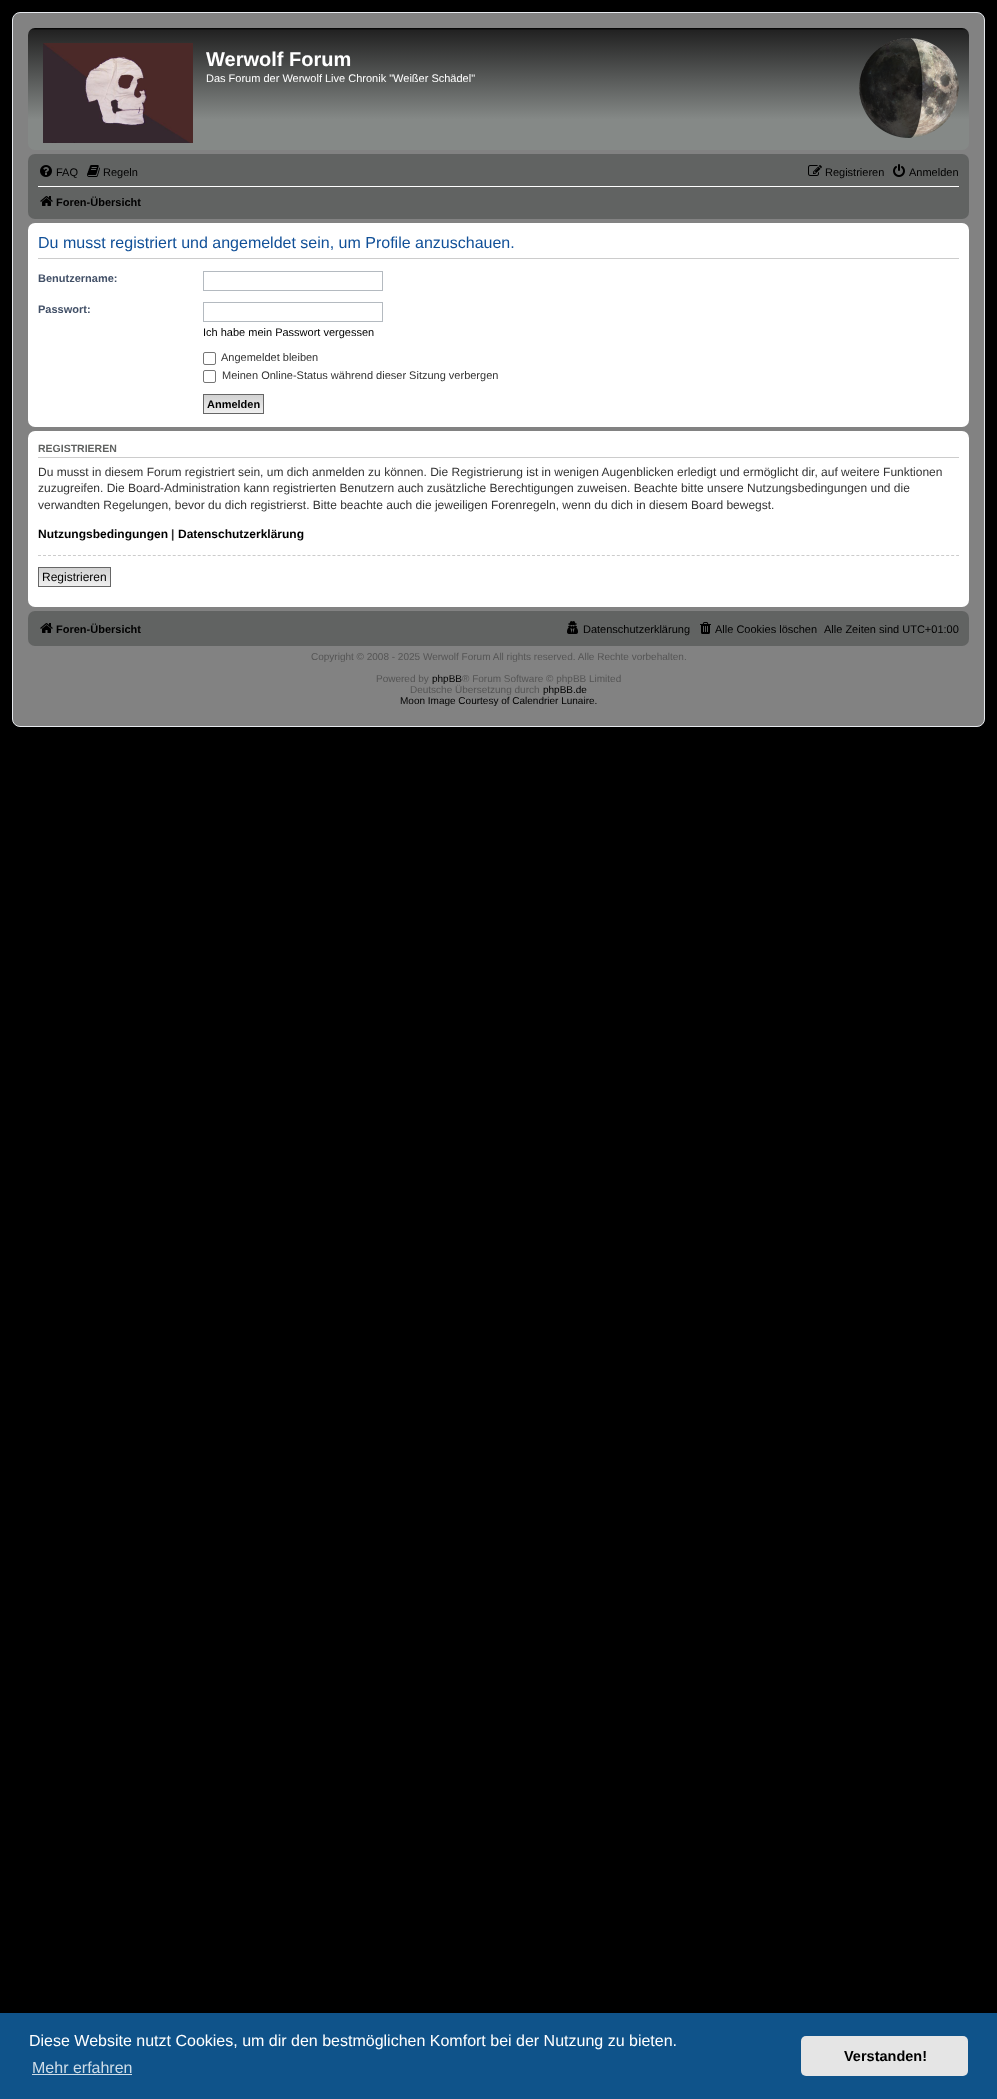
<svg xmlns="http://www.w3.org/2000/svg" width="997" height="2099">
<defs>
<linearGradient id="g1" gradientUnits="userSpaceOnUse" x1="499" y1="28" x2="499" y2="150"><stop offset="0" stop-color="#000"/><stop offset="0.02" stop-color="#222"/><stop offset="0.75" stop-color="#858987"/><stop offset="1" stop-color="#858987"/></linearGradient>
<linearGradient id="g2" gradientUnits="userSpaceOnUse" x1="234" y1="395" x2="234" y2="413"><stop offset="0" stop-color="#d2d2d2"/><stop offset="1" stop-color="#efefef"/></linearGradient>
<linearGradient id="g3" gradientUnits="userSpaceOnUse" x1="75" y1="568" x2="75" y2="586"><stop offset="0" stop-color="#d2d2d2"/><stop offset="1" stop-color="#efefef"/></linearGradient>
</defs>
<rect width="100%" height="100%" fill="#000"/>
<rect x="12.5" y="12.5" width="972" height="714" rx="7.5" fill="#828282" stroke="#e6e9ed"/>
<rect x="28" y="28" width="941" height="122" rx="7" fill="url(#g1)"/>
<image x="43" y="43" width="150" height="100" href="media/1.png"/>
<text x="206" y="66" style="font-family:Liberation Sans;font-size:20px;font-weight:bold;fill:#fff">Werwolf Forum</text>
<text x="206" y="82" style="font-family:Liberation Sans;font-size:11px;fill:#fff">Das Forum der Werwolf Live Chronik "Weißer Schädel"</text>
<image x="859" y="38" width="100" height="100" href="media/2.png"/>
<rect x="28" y="154" width="941" height="65" rx="7" fill="#616362"/>
<image x="40" y="165" width="12" height="12" href="media/3.png"/>
<text x="56" y="176" style="font-family:Liberation Sans;font-size:11px;fill:#000">FAQ</text>
<image x="87" y="165" width="13" height="12" href="media/4.png"/>
<text x="103" y="176" style="font-family:Liberation Sans;font-size:11px;fill:#000">Regeln</text>
<image x="808" y="165" width="14" height="11" href="media/5.png"/>
<text x="825" y="176" style="font-family:Liberation Sans;font-size:11px;fill:#000">Registrieren</text>
<image x="893" y="164" width="12" height="13" href="media/6.png"/>
<text x="909" y="176" style="font-family:Liberation Sans;font-size:11px;fill:#000">Anmelden</text>
<rect x="38" y="186" width="921" height="1" fill="#fff"/>
<image x="40" y="196" width="13" height="10" href="media/7.png"/>
<text x="56" y="206" style="font-family:Liberation Sans;font-size:11px;font-weight:bold;fill:#000">Foren-Übersicht</text>
<rect x="28" y="223" width="941" height="204" rx="7" fill="#fff"/>
<rect x="38" y="258" width="921" height="1" fill="#ccc"/>
<text x="38" y="248" style="font-family:Liberation Sans;font-size:16px;fill:#115098">Du musst registriert und angemeldet sein, um Profile anzuschauen.</text>
<text x="38" y="282" style="font-family:Liberation Sans;font-size:11px;font-weight:bold;fill:#425067">Benutzername:</text>
<rect x="203.5" y="271.5" width="179" height="19" fill="none" stroke="#b4bac0"/>
<text x="38" y="313" style="font-family:Liberation Sans;font-size:11px;font-weight:bold;fill:#425067">Passwort:</text>
<rect x="203.5" y="302.5" width="179" height="19" fill="none" stroke="#b4bac0"/>
<text x="203" y="336" style="font-family:Liberation Sans;font-size:11px;fill:#000">Ich habe mein Passwort vergessen</text>
<rect x="203.5" y="352.5" width="12" height="12" rx="1.5" fill="none" stroke="#767676"/>
<text x="221" y="361" style="font-family:Liberation Sans;font-size:11px;fill:#333">Angemeldet bleiben</text>
<rect x="203.5" y="370.5" width="12" height="12" rx="1.5" fill="none" stroke="#767676"/>
<text x="222" y="379" style="font-family:Liberation Sans;font-size:11px;fill:#333">Meinen Online-Status während dieser Sitzung verbergen</text>
<rect x="204" y="395" width="59" height="18" fill="url(#g2)"/>
<rect x="203.5" y="394.5" width="60" height="19" fill="none" stroke="#666"/>
<text x="207" y="408" style="font-family:Liberation Sans;font-size:11px;font-weight:bold;fill:#000">Anmelden</text>
<rect x="28" y="431" width="941" height="176" rx="7" fill="#fff"/>
<rect x="38" y="457" width="921" height="1" fill="#ccc"/>
<text x="38" y="452" style="font-family:Liberation Sans;font-size:10.5px;font-weight:bold;fill:#616362">REGISTRIEREN</text>
<text x="38" y="476" style="font-family:Liberation Sans;font-size:12px;fill:#333">Du musst in diesem Forum registriert sein, um dich anmelden zu können. Die Registrierung ist in wenigen Augenblicken erledigt und ermöglicht dir, auf weitere Funktionen</text>
<text x="38" y="492" style="font-family:Liberation Sans;font-size:12px;fill:#333">zuzugreifen. Die Board-Administration kann registrierten Benutzern auch zusätzliche Berechtigungen zuweisen. Beachte bitte unsere Nutzungsbedingungen und die</text>
<text x="38" y="509" style="font-family:Liberation Sans;font-size:12px;fill:#333">verwandten Regelungen, bevor du dich registrierst. Bitte beachte auch die jeweiligen Forenregeln, wenn du dich in diesem Board bewegst.</text>
<text x="38" y="538" style="font-family:Liberation Sans;font-size:12px;font-weight:bold;fill:#000">Nutzungsbedingungen</text>
<text x="171" y="538" style="font-family:Liberation Sans;font-size:12px;font-weight:bold;fill:#333">|</text>
<text x="178" y="538" style="font-family:Liberation Sans;font-size:12px;font-weight:bold;fill:#000">Datenschutzerklärung</text>
<path d="M38 555.5h921" fill="none" stroke="#ccc" stroke-dasharray="3 1.99"/>
<rect x="39" y="568" width="71" height="18" fill="url(#g3)"/>
<rect x="38.5" y="567.5" width="72" height="19" fill="none" stroke="#666"/>
<text x="42" y="581" style="font-family:Liberation Sans;font-size:12px;fill:#000">Registrieren</text>
<rect x="28" y="611" width="941" height="35" rx="7" fill="#616362"/>
<image x="40" y="623" width="13" height="10" href="media/7.png"/>
<text x="56" y="633" style="font-family:Liberation Sans;font-size:11px;font-weight:bold;fill:#000">Foren-Übersicht</text>
<image x="567" y="621" width="11" height="13" href="media/8.png"/>
<text x="583" y="633" style="font-family:Liberation Sans;font-size:11px;fill:#000">Datenschutzerklärung</text>
<image x="700" y="622" width="11" height="12" href="media/9.png"/>
<text x="715" y="633" style="font-family:Liberation Sans;font-size:11px;fill:#000">Alle Cookies löschen</text>
<text x="824" y="633" style="font-family:Liberation Sans;font-size:11px;fill:#000">Alle Zeiten sind UTC+01:00</text>
<text x="311" y="660" style="font-family:Liberation Sans;font-size:10px;fill:#555">Copyright © 2008 - 2025 Werwolf Forum All rights reserved. Alle Rechte vorbehalten.</text>
<text x="376" y="682" style="font-family:Liberation Sans;font-size:10px;fill:#555">Powered by</text>
<text x="432" y="682" style="font-family:Liberation Sans;font-size:10px;fill:#000">phpBB</text>
<text x="462" y="682" style="font-family:Liberation Sans;font-size:10px;fill:#555">® Forum Software © phpBB Limited</text>
<text x="410" y="693" style="font-family:Liberation Sans;font-size:10px;fill:#555">Deutsche Übersetzung durch</text>
<text x="543" y="693" style="font-family:Liberation Sans;font-size:10px;fill:#000">phpBB.de</text>
<text x="400" y="704" style="font-family:Liberation Sans;font-size:10px;fill:#000">Moon Image Courtesy of Calendrier Lunaire.</text>
<rect y="2013" width="997" height="86" fill="#0f538a"/>
<text x="29" y="2046" style="font-family:Liberation Sans;font-size:16px;fill:#fff">Diese Website nutzt Cookies, um dir den bestmöglichen Komfort bei der Nutzung zu bieten.</text>
<text x="32" y="2073" style="font-family:Liberation Sans;font-size:16px;fill:#cfdde8">Mehr erfahren</text>
<rect x="32" y="2074" width="100" height="1" fill="#cfdde8"/>
<rect x="801" y="2036" width="167" height="40" rx="5" fill="#e5e5e5"/>
<text x="844" y="2061" style="font-family:Liberation Sans;font-size:14.5px;font-weight:bold;fill:#000">Verstanden!</text>
</svg>
